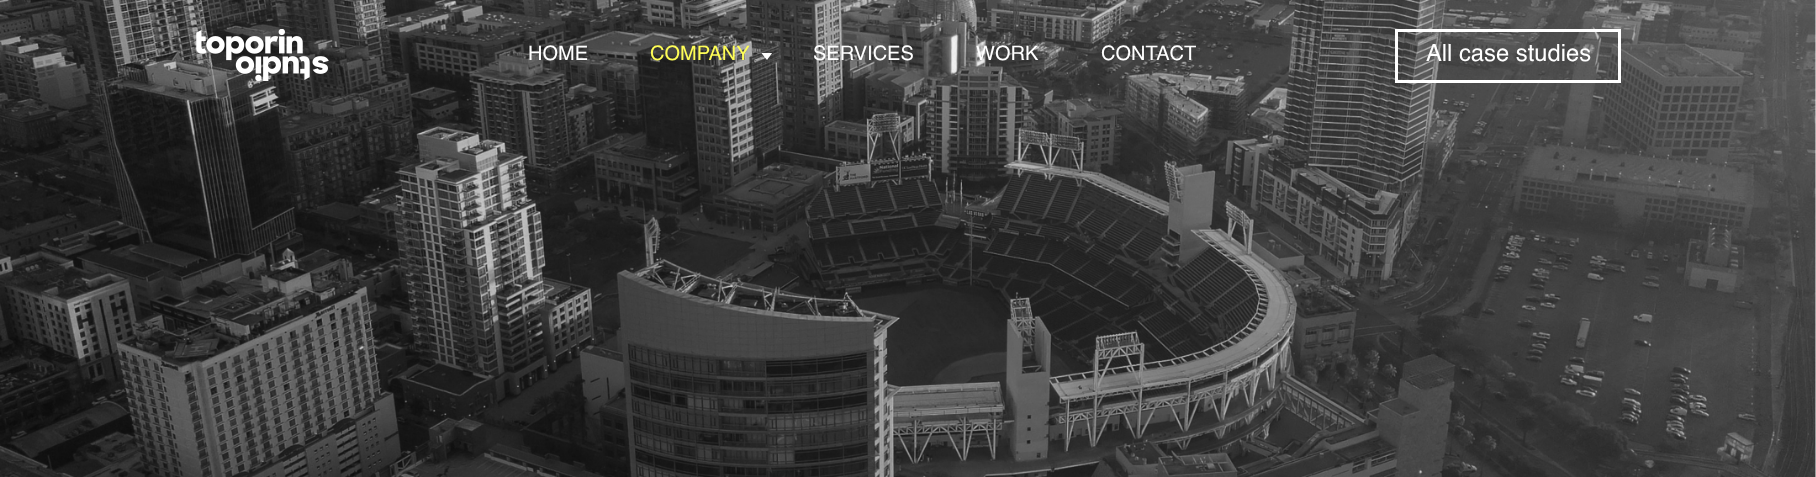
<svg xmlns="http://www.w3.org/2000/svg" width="1816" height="477">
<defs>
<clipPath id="clip1"><rect x="761" y="53" width="12" height="7"/></clipPath>
</defs>
<rect width="100%" height="100%" fill="#fff"/>
<image x="0" y="0" width="1816" height="477" href="media/1.png"/>
<image x="196" y="29" width="133" height="52" href="media/2.png"/>
<text x="528" y="60" style="font-family:Helvetica;font-size:20px;fill:#fff">HOME</text>
<text x="650" y="60" style="font-family:Helvetica;font-size:20px;fill:#fefd57">COMPANY</text>
<g clip-path="url(#clip1)">
<path d="M767 60l-6-7.5h11.5z" fill="#fff"/>
</g>
<text x="813" y="60" style="font-family:Helvetica;font-size:20px;fill:#fff">SERVICES</text>
<text x="976" y="60" style="font-family:Helvetica;font-size:20px;fill:#fff">WORK</text>
<text x="1101" y="60" style="font-family:Helvetica;font-size:20px;fill:#fff">CONTACT</text>
<rect x="1396.5" y="30.5" width="223" height="51" fill="none" stroke="#fff" stroke-width="3"/>
<text x="1426" y="61" style="font-family:Helvetica;font-size:23.75px;fill:#fff">All case studies</text>
</svg>
